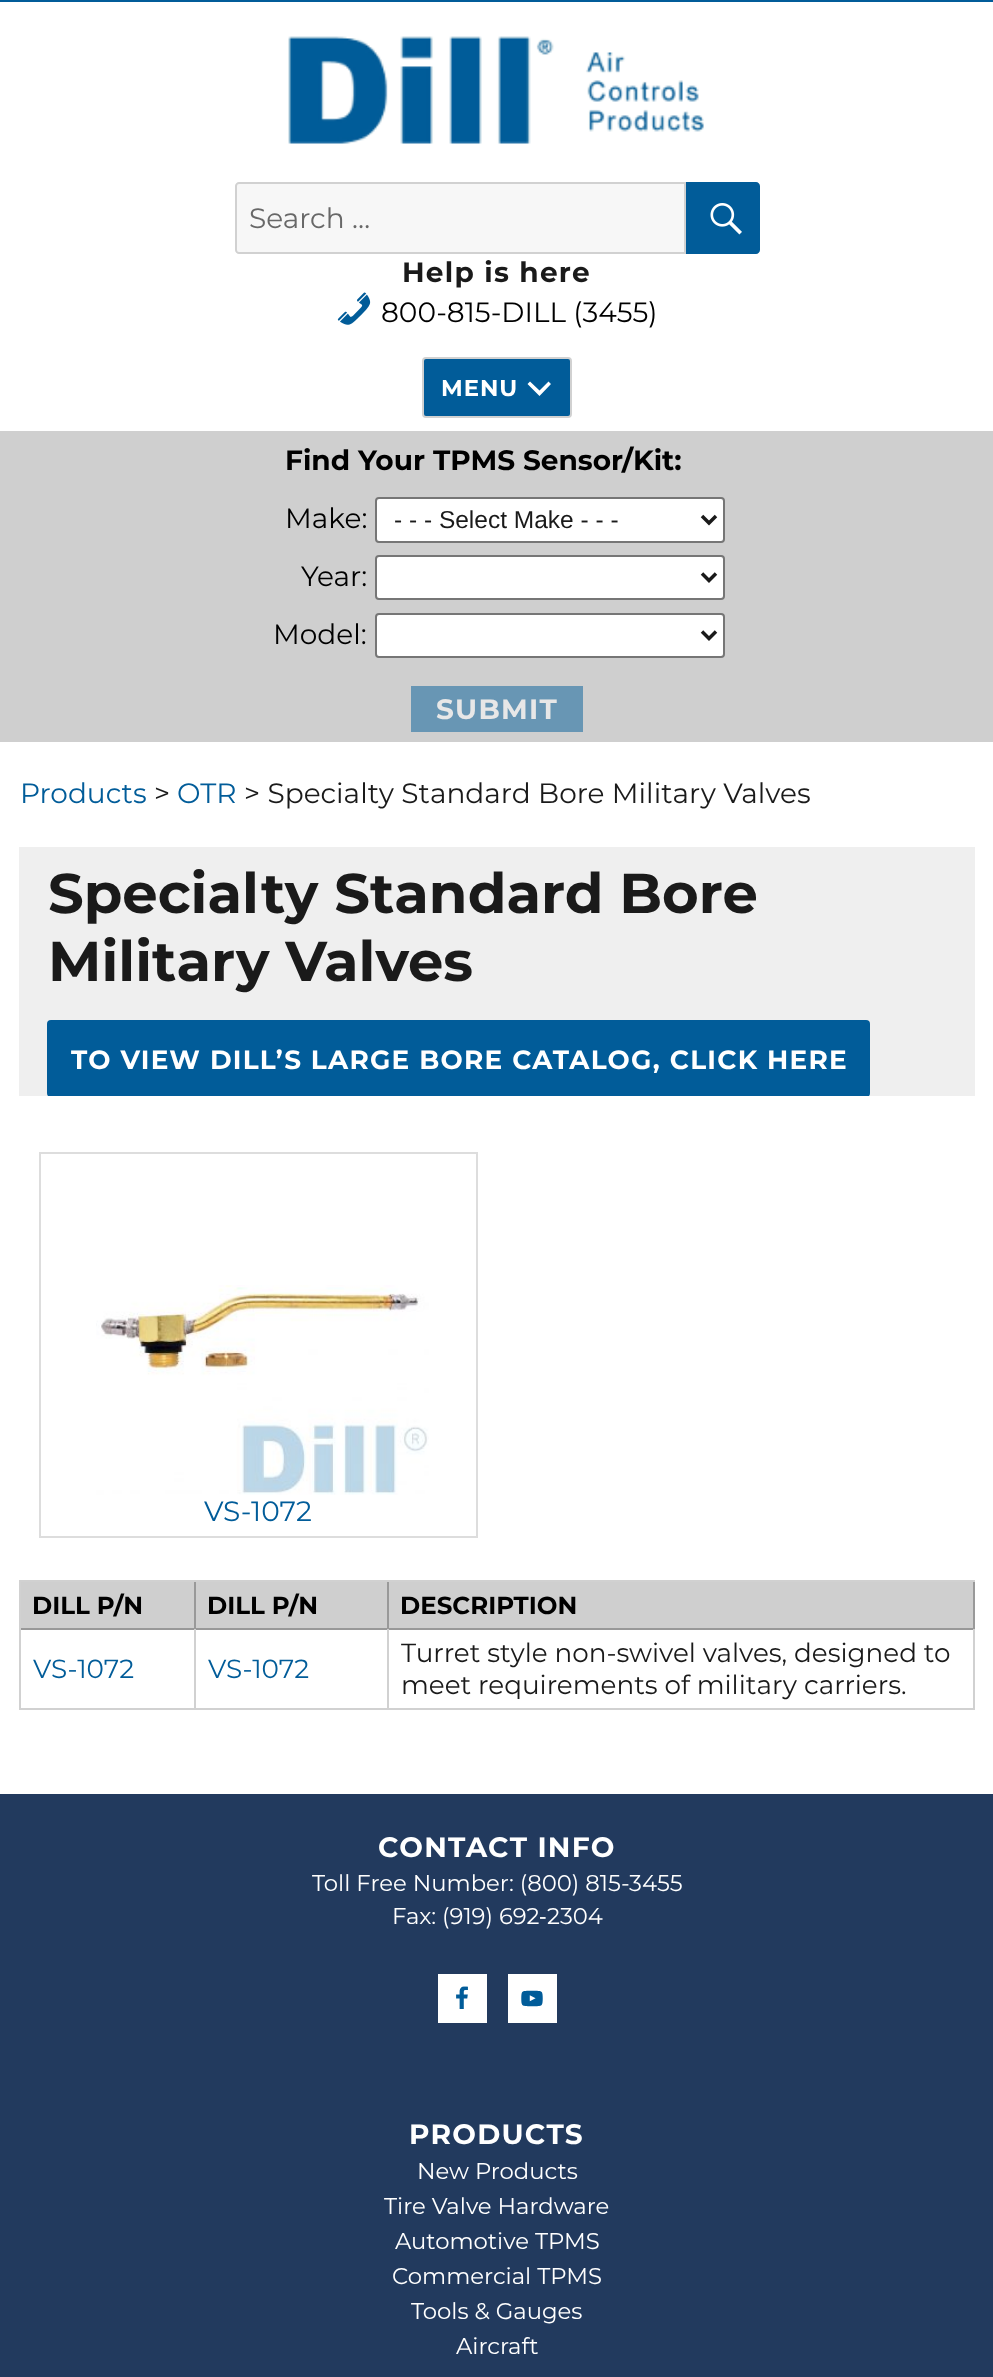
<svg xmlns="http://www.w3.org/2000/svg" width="993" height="2377">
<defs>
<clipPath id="clip1"><rect x="19" y="847" width="956" height="249"/></clipPath>
</defs>
<rect width="100%" height="100%" fill="#fff"/>
<rect width="993" height="2" fill="#015c99"/>
<image x="288" y="36" width="416" height="108" href="media/1.png"/>
<path d="M239 183h446v70h-446c-1.5 0-3-1.5-3-3v-64c0-1.5 1.5-3 3-3z" fill="#f7f7f7" stroke="#d1d1d1" stroke-width="2"/>
<text x="249" y="228" style="font-family:Montserrat;font-size:28px;font-weight:100;fill:#686868">Search …</text>
<path d="M686 182h70c2 0 4 2 4 4v64c0 2-2 4-4 4h-70z" fill="#015c99"/>
<image x="710" y="203" width="32" height="32" href="media/2.png"/>
<text x="402" y="282" style="font-family:'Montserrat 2';font-size:28px;font-weight:100;letter-spacing:1.25px;fill:#1a1a1a">Help is here</text>
<image x="337" y="292" width="34" height="33" href="media/3.png"/>
<text x="381" y="322" style="font-family:Montserrat;font-size:28px;font-weight:100;fill:#000">800-815-DILL (3455)</text>
<rect x="423" y="358" width="148" height="59" rx="3" fill="#015c99" stroke="#d1d1d1" stroke-width="2"/>
<text x="441" y="396" style="font-family:'Montserrat 2';font-size:22.75px;font-weight:100;letter-spacing:1px;fill:#fff">MENU</text>
<path d="M548.5 381.5l2.5 2.5l-11.5 12l-12-12l2.5-2.5l9.5 9z" fill="#fff"/>
<rect y="431" width="993" height="311" fill="#cfcfcf"/>
<text x="285" y="470" style="font-family:'Montserrat 2';font-size:28px;font-weight:100;fill:#000">Find Your TPMS Sensor/Kit:</text>
<text x="285" y="528" style="font-family:Montserrat;font-size:28px;font-weight:100;fill:#000">Make:</text>
<rect x="376" y="498" width="348" height="44" rx="3" fill="#fff" stroke="#767676" stroke-width="2"/>
<path d="M702 516l7 7l7-7" fill="none" stroke="#1a1a1a" stroke-width="3.5"/>
<text x="394" y="528" style="font-family:Liberation Sans;font-size:24.5px;fill:#1a1a1a">- - - Select Make - - -</text>
<text x="301" y="586" style="font-family:Montserrat;font-size:28px;font-weight:100;fill:#000">Year:</text>
<rect x="376" y="556" width="348" height="43" rx="3" fill="#fff" stroke="#767676" stroke-width="2"/>
<path d="M702 573.5l7 7l7-7" fill="none" stroke="#1a1a1a" stroke-width="3.5"/>
<text x="273" y="644" style="font-family:Montserrat;font-size:28px;font-weight:100;fill:#000">Model:</text>
<rect x="376" y="614" width="348" height="43" rx="3" fill="#fff" stroke="#767676" stroke-width="2"/>
<path d="M702 631.5l7 7l7-7" fill="none" stroke="#1a1a1a" stroke-width="3.5"/>
<rect x="411" y="686" width="172" height="46" fill="#6896b4"/>
<text x="436" y="719" style="font-family:'Montserrat 2';font-size:28px;font-weight:100;letter-spacing:1.25px;fill:#e7e7e7">SUBMIT</text>
<text x="20" y="803" style="font-family:Montserrat;font-size:28px;font-weight:100;fill:#015c99">Products</text>
<text x="154" y="803" style="font-family:Montserrat;font-size:28px;font-weight:100;fill:#1a1a1a">&gt;</text>
<text x="177" y="803" style="font-family:Montserrat;font-size:28px;font-weight:100;fill:#015c99">OTR</text>
<text x="244" y="803" style="font-family:Montserrat;font-size:28px;font-weight:100;fill:#1a1a1a">&gt; Specialty Standard Bore Military Valves</text>
<rect x="19" y="847" width="956" height="249" fill="#efefef"/>
<text x="48" y="913" style="font-family:'Montserrat 2';font-size:56px;font-weight:100;fill:#1a1a1a">Specialty Standard Bore</text>
<text x="48" y="981" style="font-family:'Montserrat 2';font-size:56px;font-weight:100;fill:#1a1a1a">Military Valves</text>
<g clip-path="url(#clip1)">
<rect x="47" y="1020" width="823" height="77" rx="4" fill="#015c99"/>
</g>
<text x="71" y="1069" style="font-family:'Montserrat 2';font-size:26.3px;font-weight:100;letter-spacing:1.25px;fill:#fff">TO VIEW DILL’S LARGE BORE CATALOG, CLICK HERE</text>
<rect x="40" y="1153" width="437" height="384" fill="none" stroke="#ddd" stroke-width="2"/>
<image x="96" y="1285" width="333" height="210" href="media/4.png"/>
<text x="204" y="1521" style="font-family:Montserrat;font-size:28px;font-weight:100;fill:#015c99">VS-1072</text>
<rect x="19" y="1580" width="956" height="2" fill="#d1d1d1"/>
<rect x="19" y="1580" width="2" height="130" fill="#d1d1d1"/>
<rect x="21" y="1582" width="173" height="46" fill="#cfcfcf"/>
<rect x="194" y="1582" width="2" height="47" fill="#999"/>
<rect x="21" y="1628" width="175" height="2" fill="#999"/>
<text x="32" y="1614" style="font-family:'Montserrat 2';font-size:24.5px;font-weight:100;fill:#000">DILL P/N</text>
<rect x="196" y="1582" width="191" height="46" fill="#cfcfcf"/>
<rect x="387" y="1582" width="2" height="47" fill="#999"/>
<rect x="196" y="1628" width="193" height="2" fill="#999"/>
<text x="207" y="1614" style="font-family:'Montserrat 2';font-size:24.5px;font-weight:100;fill:#000">DILL P/N</text>
<rect x="389" y="1582" width="584" height="46" fill="#cfcfcf"/>
<rect x="973" y="1582" width="2" height="47" fill="#999"/>
<rect x="389" y="1628" width="586" height="2" fill="#999"/>
<text x="400" y="1614" style="font-family:'Montserrat 2';font-size:24.5px;font-weight:100;fill:#000">DESCRIPTION</text>
<rect x="194" y="1629" width="2" height="81" fill="#d1d1d1"/>
<rect x="21" y="1708" width="175" height="2" fill="#d1d1d1"/>
<text x="33" y="1678" style="font-family:Montserrat;font-size:26.25px;font-weight:100;fill:#015c99">VS-1072</text>
<rect x="387" y="1629" width="2" height="81" fill="#d1d1d1"/>
<rect x="196" y="1708" width="193" height="2" fill="#d1d1d1"/>
<text x="208" y="1678" style="font-family:Montserrat;font-size:26.25px;font-weight:100;fill:#015c99">VS-1072</text>
<rect x="973" y="1629" width="2" height="81" fill="#d1d1d1"/>
<rect x="389" y="1708" width="586" height="2" fill="#d1d1d1"/>
<text x="401" y="1662" style="font-family:Montserrat;font-size:26.25px;font-weight:100;fill:#1a1a1a">Turret style non-swivel valves, designed to</text>
<text x="401" y="1694" style="font-family:Montserrat;font-size:26.25px;font-weight:100;fill:#1a1a1a">meet requirements of military carriers.</text>
<rect y="1794" width="993" height="583" fill="#223a5e"/>
<text x="378" y="1857" style="font-family:'Montserrat 2';font-size:28px;font-weight:100;letter-spacing:1.25px;fill:#fff">CONTACT INFO</text>
<text x="312" y="1891" style="font-family:Montserrat;font-size:22.75px;font-weight:100;fill:#fff">Toll Free Number: (800) 815-3455</text>
<text x="392" y="1924" style="font-family:Montserrat;font-size:22.75px;font-weight:100;fill:#fff">Fax: (919) 692</text>
<text x="539" y="1924" style="font-family:Liberation Sans;font-size:22.75px;fill:#fff">‐</text>
<text x="547" y="1924" style="font-family:Montserrat;font-size:22.75px;font-weight:100;fill:#fff">2304</text>
<rect x="438" y="1974" width="49" height="49" fill="#fff"/>
<image x="456" y="1986" width="12" height="23" href="media/5.png"/>
<rect x="508" y="1974" width="49" height="49" fill="#fff"/>
<image x="521" y="1990" width="22" height="17" href="media/6.png"/>
<text x="409" y="2144" style="font-family:'Montserrat 2';font-size:28px;font-weight:100;letter-spacing:1.25px;fill:#fff">PRODUCTS</text>
<text x="417" y="2179" style="font-family:Montserrat;font-size:22.75px;font-weight:100;fill:#fff">New Products</text>
<text x="384" y="2214" style="font-family:Montserrat;font-size:22.75px;font-weight:100;fill:#fff">Tire Valve Hardware</text>
<text x="395" y="2249" style="font-family:Montserrat;font-size:22.75px;font-weight:100;fill:#fff">Automotive TPMS</text>
<text x="392" y="2284" style="font-family:Montserrat;font-size:22.75px;font-weight:100;fill:#fff">Commercial TPMS</text>
<text x="411" y="2319" style="font-family:Montserrat;font-size:22.75px;font-weight:100;fill:#fff">Tools &amp; Gauges</text>
<text x="456" y="2354" style="font-family:Montserrat;font-size:22.75px;font-weight:100;fill:#fff">Aircraft</text>
</svg>
